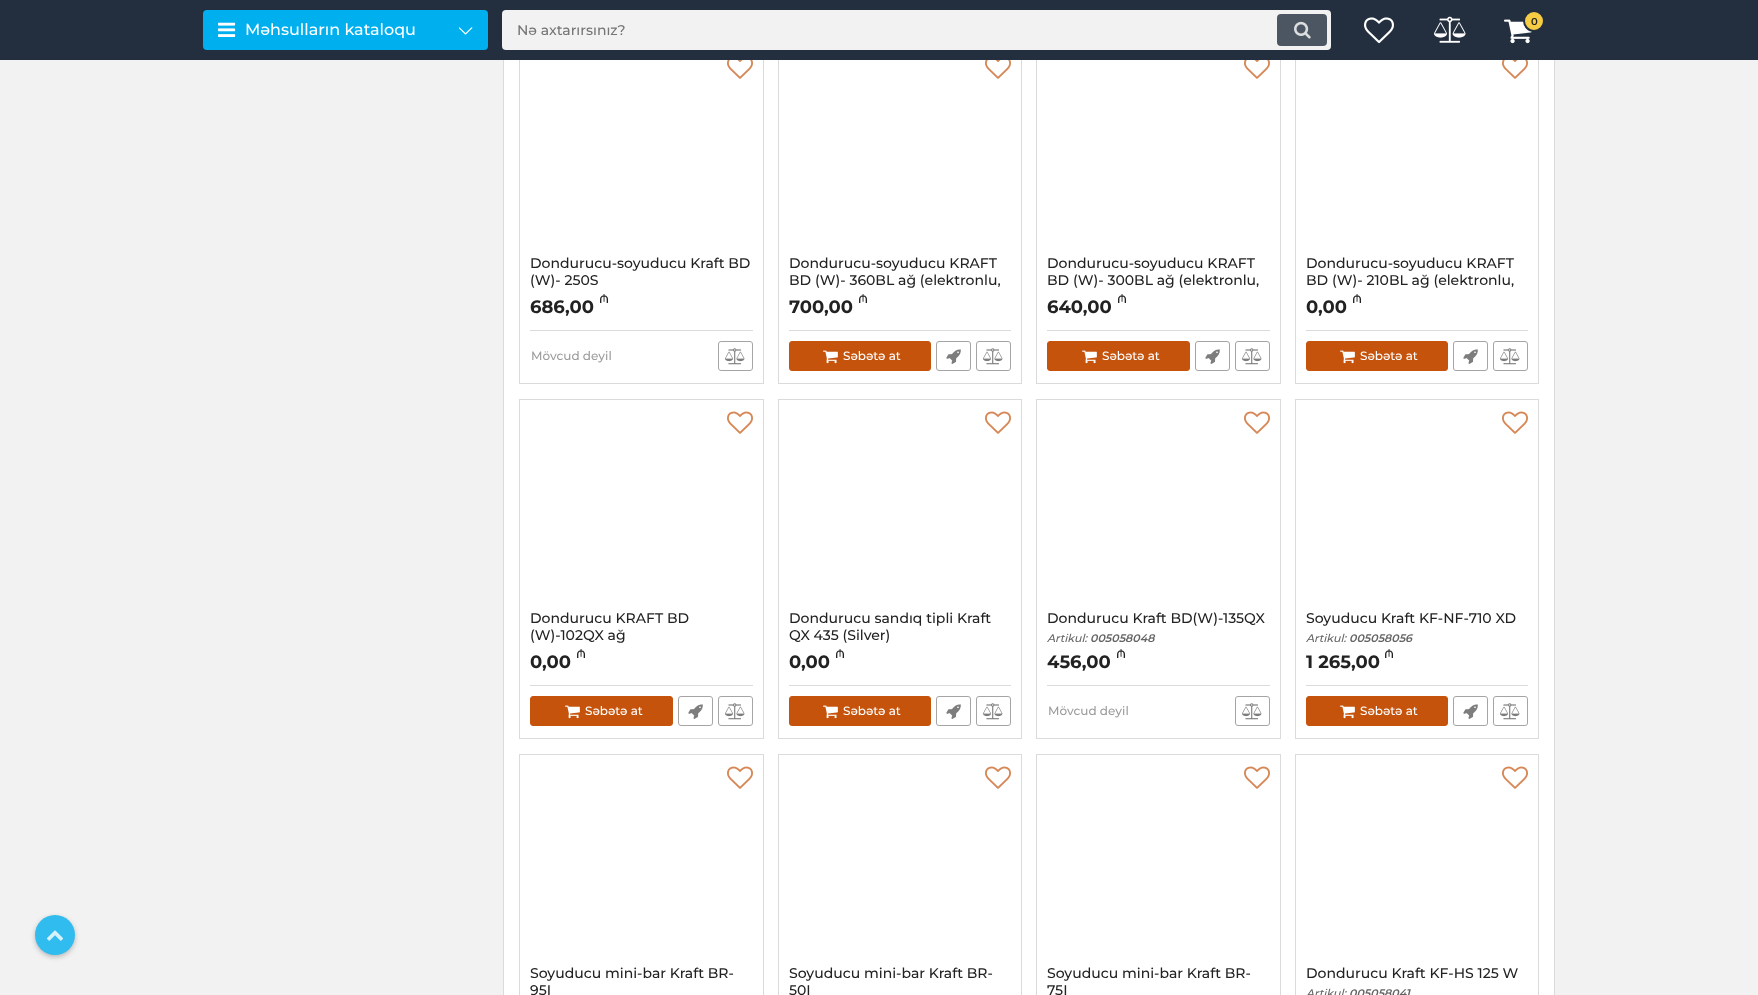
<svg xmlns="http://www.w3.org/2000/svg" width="1758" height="995">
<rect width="100%" height="100%" fill="#f2f2f2"/>
<rect x="504" y="60" width="1050" height="935" fill="#fff"/>
<rect x="503.5" y="-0.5" width="1051" height="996" fill="none" stroke="#dbdbdb"/>
<rect x="519.5" y="44.5" width="244" height="339" fill="none" stroke="#dbdbdb"/>
<rect x="778.5" y="44.5" width="243" height="339" fill="none" stroke="#dbdbdb"/>
<rect x="1036.5" y="44.5" width="244" height="339" fill="none" stroke="#dbdbdb"/>
<rect x="1295.5" y="44.5" width="243" height="339" fill="none" stroke="#dbdbdb"/>
<rect width="1758" height="60" fill="#232f3e"/>
<image x="1364" y="17" width="30" height="27" href="media/1.png"/>
<image x="1434" y="16" width="32" height="27" href="media/2.png"/>
<image x="1504" y="19" width="28" height="25" href="media/3.png"/>
<circle cx="1534" cy="21" r="10" fill="#f5cc43" stroke="#232f3e" stroke-width="2"/>
<text x="1531" y="25" style="font-family:Montserrat;font-size:10px;font-weight:600;fill:#222">0</text>
<rect x="203" y="10" width="285" height="40" rx="4" fill="#00afee"/>
<image x="218" y="22" width="18" height="15" href="media/4.png"/>
<text x="245" y="35" style="font-family:Montserrat;font-size:16px;font-weight:500;fill:#fff">Məhsulların kataloqu</text>
<image x="459" y="27" width="14" height="8" href="media/5.png"/>
<rect x="502" y="10" width="829" height="40" rx="4" fill="#f2f2f2"/>
<text x="517" y="35" style="font-family:Montserrat;font-size:14px;font-weight:500;fill:#757575">Nə axtarırsınız?</text>
<rect x="1277" y="14" width="50" height="32" rx="4" fill="#4c5662"/>
<image x="1294" y="21" width="17" height="18" href="media/6.png"/>
<rect x="35" y="917" width="40" height="40" rx="20" fill="#3030304d" filter="blur(2.5px)"/>
<circle cx="55" cy="935" r="20" fill="#30bcef"/>
<image x="47" y="930" width="16" height="11" href="media/7.png"/>
<image x="727" y="60" width="26" height="19" href="media/8.png"/>
<text x="530" y="268" style="font-family:Montserrat;font-size:14px;font-weight:500;fill:#222">Dondurucu-soyuducu Kraft BD</text>
<text x="530" y="285" style="font-family:Montserrat;font-size:14px;font-weight:500;fill:#222">(W)- 250S</text>
<text x="599" y="303" style="font-family:Montserrat;font-size:11px;font-weight:600;fill:#222">₼</text>
<text x="530" y="313" style="font-family:Montserrat;font-size:18px;font-weight:bold;fill:#222">686,00</text>
<rect x="530" y="330" width="223" height="1" fill="#dbdbdb"/>
<text x="531" y="360" style="font-family:Montserrat;font-size:12px;font-weight:500;fill:#9c9c9c">Mövcud deyil</text>
<rect x="718.5" y="341.5" width="34" height="29" rx="2.5" fill="none" stroke="#a5a5a5"/>
<image x="725" y="348" width="20" height="17" href="media/9.png"/>
<image x="985" y="60" width="26" height="19" href="media/8.png"/>
<text x="789" y="268" style="font-family:Montserrat;font-size:14px;font-weight:500;fill:#222">Dondurucu-soyuducu KRAFT</text>
<text x="789" y="285" style="font-family:Montserrat;font-size:14px;font-weight:500;fill:#222">BD (W)- 360BL ağ (elektronlu,</text>
<text x="858" y="303" style="font-family:Montserrat;font-size:11px;font-weight:600;fill:#222">₼</text>
<text x="789" y="313" style="font-family:Montserrat;font-size:18px;font-weight:bold;fill:#222">700,00</text>
<rect x="789" y="330" width="222" height="1" fill="#dbdbdb"/>
<rect x="789.5" y="341.5" width="141" height="29" rx="2.5" fill="#c5530c" stroke="#c5530c"/>
<image x="823" y="350" width="15" height="14" href="media/10.png"/>
<text x="843" y="360" style="font-family:Montserrat;font-size:12px;font-weight:500;fill:#fff">Səbətə at</text>
<rect x="936.5" y="341.5" width="34" height="29" rx="2.5" fill="none" stroke="#a5a5a5"/>
<image x="946" y="349" width="15" height="15" href="media/11.png"/>
<rect x="976.5" y="341.5" width="34" height="29" rx="2.5" fill="none" stroke="#a5a5a5"/>
<image x="983" y="348" width="20" height="17" href="media/9.png"/>
<image x="1244" y="60" width="26" height="19" href="media/8.png"/>
<text x="1047" y="268" style="font-family:Montserrat;font-size:14px;font-weight:500;fill:#222">Dondurucu-soyuducu KRAFT</text>
<text x="1047" y="285" style="font-family:Montserrat;font-size:14px;font-weight:500;fill:#222">BD (W)- 300BL ağ (elektronlu,</text>
<text x="1117" y="303" style="font-family:Montserrat;font-size:11px;font-weight:600;fill:#222">₼</text>
<text x="1047" y="313" style="font-family:Montserrat;font-size:18px;font-weight:bold;fill:#222">640,00</text>
<rect x="1047" y="330" width="223" height="1" fill="#dbdbdb"/>
<rect x="1047.5" y="341.5" width="142" height="29" rx="2.5" fill="#c5530c" stroke="#c5530c"/>
<image x="1082" y="350" width="15" height="14" href="media/10.png"/>
<text x="1102" y="360" style="font-family:Montserrat;font-size:12px;font-weight:500;fill:#fff">Səbətə at</text>
<rect x="1195.5" y="341.5" width="34" height="29" rx="2.5" fill="none" stroke="#a5a5a5"/>
<image x="1205" y="349" width="15" height="15" href="media/11.png"/>
<rect x="1235.5" y="341.5" width="34" height="29" rx="2.5" fill="none" stroke="#a5a5a5"/>
<image x="1242" y="348" width="20" height="17" href="media/9.png"/>
<image x="1502" y="60" width="26" height="19" href="media/8.png"/>
<text x="1306" y="268" style="font-family:Montserrat;font-size:14px;font-weight:500;fill:#222">Dondurucu-soyuducu KRAFT</text>
<text x="1306" y="285" style="font-family:Montserrat;font-size:14px;font-weight:500;fill:#222">BD (W)- 210BL ağ (elektronlu,</text>
<text x="1352" y="303" style="font-family:Montserrat;font-size:11px;font-weight:600;fill:#222">₼</text>
<text x="1306" y="313" style="font-family:Montserrat;font-size:18px;font-weight:bold;fill:#222">0,00</text>
<rect x="1306" y="330" width="222" height="1" fill="#dbdbdb"/>
<rect x="1306.5" y="341.5" width="141" height="29" rx="2.5" fill="#c5530c" stroke="#c5530c"/>
<image x="1340" y="350" width="15" height="14" href="media/10.png"/>
<text x="1360" y="360" style="font-family:Montserrat;font-size:12px;font-weight:500;fill:#fff">Səbətə at</text>
<rect x="1453.5" y="341.5" width="34" height="29" rx="2.5" fill="none" stroke="#a5a5a5"/>
<image x="1463" y="349" width="15" height="15" href="media/11.png"/>
<rect x="1493.5" y="341.5" width="34" height="29" rx="2.5" fill="none" stroke="#a5a5a5"/>
<image x="1500" y="348" width="20" height="17" href="media/9.png"/>
<rect x="519.5" y="399.5" width="244" height="339" fill="none" stroke="#dbdbdb"/>
<image x="727" y="411" width="26" height="23" href="media/12.png"/>
<text x="530" y="623" style="font-family:Montserrat;font-size:14px;font-weight:500;fill:#222">Dondurucu KRAFT BD</text>
<text x="530" y="640" style="font-family:Montserrat;font-size:14px;font-weight:500;fill:#222">(W)-102QX ağ</text>
<text x="576" y="658" style="font-family:Montserrat;font-size:11px;font-weight:600;fill:#222">₼</text>
<text x="530" y="668" style="font-family:Montserrat;font-size:18px;font-weight:bold;fill:#222">0,00</text>
<rect x="530" y="685" width="223" height="1" fill="#dbdbdb"/>
<rect x="530.5" y="696.5" width="142" height="29" rx="2.5" fill="#c5530c" stroke="#c5530c"/>
<image x="565" y="705" width="15" height="14" href="media/10.png"/>
<text x="585" y="715" style="font-family:Montserrat;font-size:12px;font-weight:500;fill:#fff">Səbətə at</text>
<rect x="678.5" y="696.5" width="34" height="29" rx="2.5" fill="none" stroke="#a5a5a5"/>
<image x="688" y="704" width="15" height="15" href="media/11.png"/>
<rect x="718.5" y="696.5" width="34" height="29" rx="2.5" fill="none" stroke="#a5a5a5"/>
<image x="725" y="703" width="20" height="17" href="media/9.png"/>
<rect x="778.5" y="399.5" width="243" height="339" fill="none" stroke="#dbdbdb"/>
<image x="985" y="411" width="26" height="23" href="media/12.png"/>
<text x="789" y="623" style="font-family:Montserrat;font-size:14px;font-weight:500;fill:#222">Dondurucu sandıq tipli Kraft</text>
<text x="789" y="640" style="font-family:Montserrat;font-size:14px;font-weight:500;fill:#222">QX 435 (Silver)</text>
<text x="835" y="658" style="font-family:Montserrat;font-size:11px;font-weight:600;fill:#222">₼</text>
<text x="789" y="668" style="font-family:Montserrat;font-size:18px;font-weight:bold;fill:#222">0,00</text>
<rect x="789" y="685" width="222" height="1" fill="#dbdbdb"/>
<rect x="789.5" y="696.5" width="141" height="29" rx="2.5" fill="#c5530c" stroke="#c5530c"/>
<image x="823" y="705" width="15" height="14" href="media/10.png"/>
<text x="843" y="715" style="font-family:Montserrat;font-size:12px;font-weight:500;fill:#fff">Səbətə at</text>
<rect x="936.5" y="696.5" width="34" height="29" rx="2.5" fill="none" stroke="#a5a5a5"/>
<image x="946" y="704" width="15" height="15" href="media/11.png"/>
<rect x="976.5" y="696.5" width="34" height="29" rx="2.5" fill="none" stroke="#a5a5a5"/>
<image x="983" y="703" width="20" height="17" href="media/9.png"/>
<rect x="1036.5" y="399.5" width="244" height="339" fill="none" stroke="#dbdbdb"/>
<image x="1244" y="411" width="26" height="23" href="media/12.png"/>
<text x="1047" y="623" style="font-family:Montserrat;font-size:14px;font-weight:500;fill:#222">Dondurucu Kraft BD(W)-135QX</text>
<text x="1047" y="642" style="font-family:Montserrat;font-size:11px;font-weight:500;font-style:italic;fill:#646464">Artikul:</text>
<text x="1090" y="642" style="font-family:Montserrat;font-size:11px;font-weight:600;font-style:italic;fill:#646464">005058048</text>
<text x="1116" y="658" style="font-family:Montserrat;font-size:11px;font-weight:600;fill:#222">₼</text>
<text x="1047" y="668" style="font-family:Montserrat;font-size:18px;font-weight:bold;fill:#222">456,00</text>
<rect x="1047" y="685" width="223" height="1" fill="#dbdbdb"/>
<text x="1048" y="715" style="font-family:Montserrat;font-size:12px;font-weight:500;fill:#9c9c9c">Mövcud deyil</text>
<rect x="1235.5" y="696.5" width="34" height="29" rx="2.5" fill="none" stroke="#a5a5a5"/>
<image x="1242" y="703" width="20" height="17" href="media/9.png"/>
<rect x="1295.5" y="399.5" width="243" height="339" fill="none" stroke="#dbdbdb"/>
<image x="1502" y="411" width="26" height="23" href="media/12.png"/>
<text x="1306" y="623" style="font-family:Montserrat;font-size:14px;font-weight:500;fill:#222">Soyuducu Kraft KF-NF-710 XD</text>
<text x="1306" y="642" style="font-family:Montserrat;font-size:11px;font-weight:500;font-style:italic;fill:#646464">Artikul:</text>
<text x="1349" y="642" style="font-family:Montserrat;font-size:11px;font-weight:600;font-style:italic;fill:#646464">005058056</text>
<text x="1384" y="658" style="font-family:Montserrat;font-size:11px;font-weight:600;fill:#222">₼</text>
<text x="1306" y="668" style="font-family:Montserrat;font-size:18px;font-weight:bold;fill:#222">1 265,00</text>
<rect x="1306" y="685" width="222" height="1" fill="#dbdbdb"/>
<rect x="1306.5" y="696.5" width="141" height="29" rx="2.5" fill="#c5530c" stroke="#c5530c"/>
<image x="1340" y="705" width="15" height="14" href="media/10.png"/>
<text x="1360" y="715" style="font-family:Montserrat;font-size:12px;font-weight:500;fill:#fff">Səbətə at</text>
<rect x="1453.5" y="696.5" width="34" height="29" rx="2.5" fill="none" stroke="#a5a5a5"/>
<image x="1463" y="704" width="15" height="15" href="media/11.png"/>
<rect x="1493.5" y="696.5" width="34" height="29" rx="2.5" fill="none" stroke="#a5a5a5"/>
<image x="1500" y="703" width="20" height="17" href="media/9.png"/>
<rect x="519.5" y="754.5" width="244" height="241" fill="none" stroke="#dbdbdb"/>
<image x="727" y="766" width="26" height="23" href="media/12.png"/>
<text x="530" y="978" style="font-family:Montserrat;font-size:14px;font-weight:500;fill:#222">Soyuducu mini-bar Kraft BR-</text>
<text x="530" y="995" style="font-family:Montserrat;font-size:14px;font-weight:500;fill:#222">95I</text>
<rect x="778.5" y="754.5" width="243" height="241" fill="none" stroke="#dbdbdb"/>
<image x="985" y="766" width="26" height="23" href="media/12.png"/>
<text x="789" y="978" style="font-family:Montserrat;font-size:14px;font-weight:500;fill:#222">Soyuducu mini-bar Kraft BR-</text>
<text x="789" y="995" style="font-family:Montserrat;font-size:14px;font-weight:500;fill:#222">50I</text>
<rect x="1036.5" y="754.5" width="244" height="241" fill="none" stroke="#dbdbdb"/>
<image x="1244" y="766" width="26" height="23" href="media/12.png"/>
<text x="1047" y="978" style="font-family:Montserrat;font-size:14px;font-weight:500;fill:#222">Soyuducu mini-bar Kraft BR-</text>
<text x="1047" y="995" style="font-family:Montserrat;font-size:14px;font-weight:500;fill:#222">75I</text>
<rect x="1295.5" y="754.5" width="243" height="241" fill="none" stroke="#dbdbdb"/>
<image x="1502" y="766" width="26" height="23" href="media/12.png"/>
<text x="1306" y="978" style="font-family:Montserrat;font-size:14px;font-weight:500;fill:#222">Dondurucu Kraft KF-HS 125 W</text>
<text x="1306" y="997" style="font-family:Montserrat;font-size:11px;font-weight:500;font-style:italic;fill:#646464">Artikul:</text>
<text x="1349" y="997" style="font-family:Montserrat;font-size:11px;font-weight:600;font-style:italic;fill:#646464">005058041</text>
</svg>
